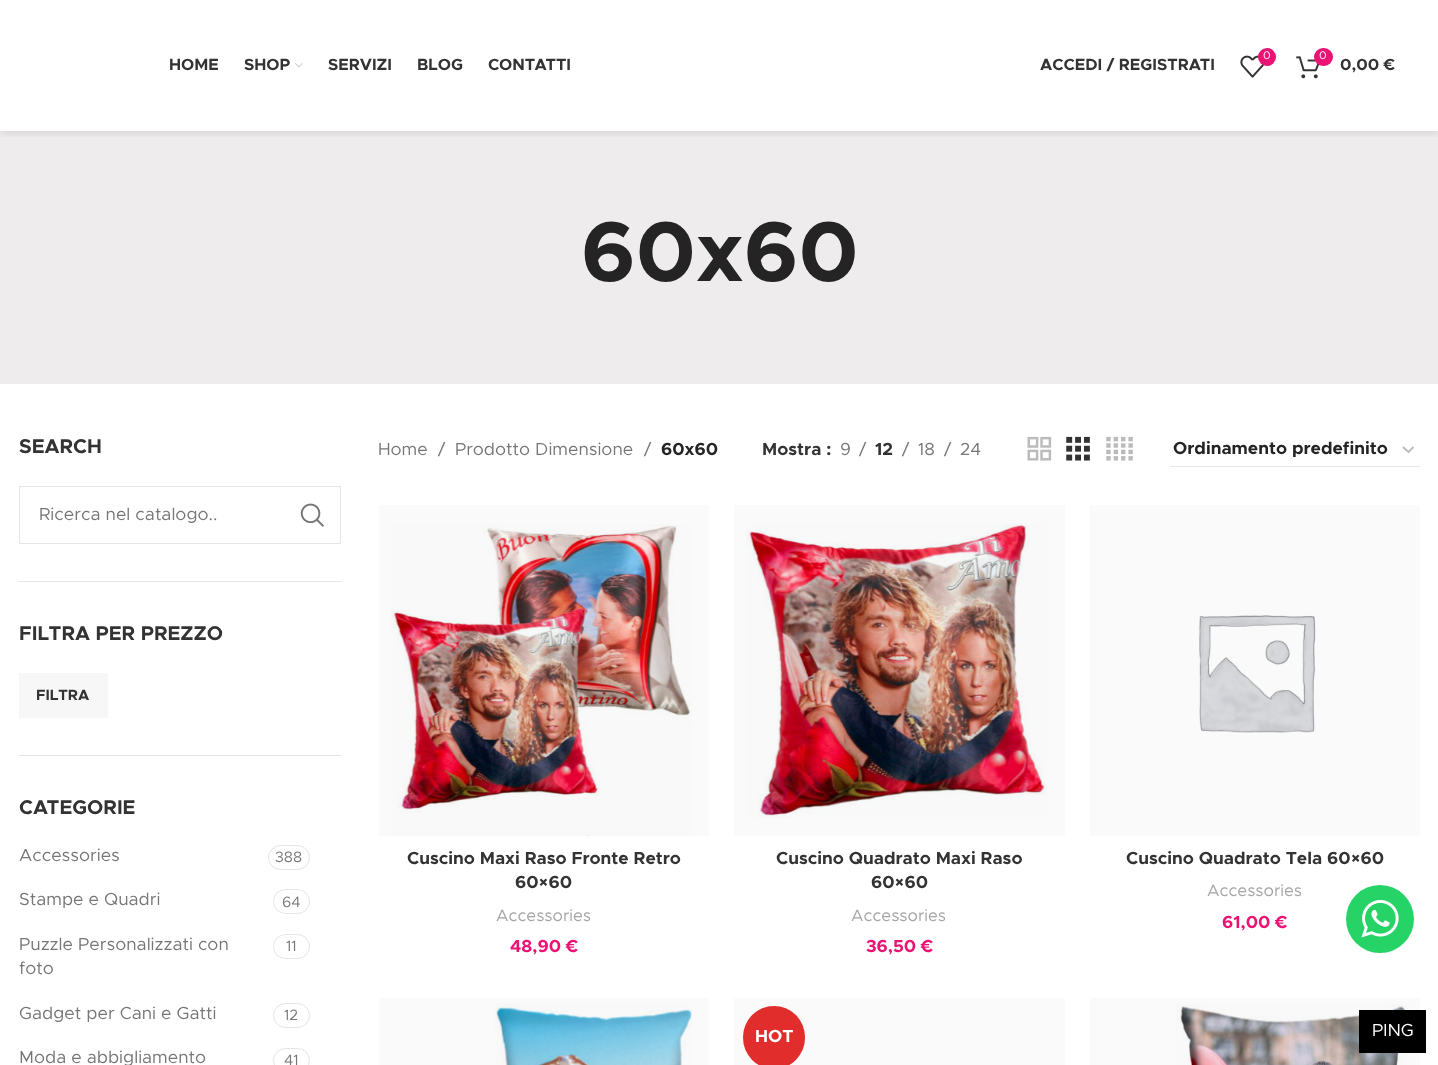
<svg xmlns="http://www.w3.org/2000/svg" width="1438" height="1065">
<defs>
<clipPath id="clip1"><rect x="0" y="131" width="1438" height="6"/></clipPath>
</defs>
<rect width="100%" height="100%" fill="#fff"/>
<rect y="131" width="1438" height="253" fill="#eeecec"/>
<g clip-path="url(#clip1)">
<rect y="1" width="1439" height="132" fill="#0000001a" filter="blur(5px)"/>
</g>
<text x="169" y="70" style="font-family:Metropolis;font-size:16.25px;font-weight:bold;fill:#333">HOME</text>
<text x="244" y="70" style="font-family:Metropolis;font-size:16.25px;font-weight:bold;fill:#333">SHOP</text>
<image x="295" y="63" width="8" height="5" href="media/1.png"/>
<text x="328" y="70" style="font-family:Metropolis;font-size:16.25px;font-weight:bold;fill:#333">SERVIZI</text>
<text x="417" y="70" style="font-family:Metropolis;font-size:16.25px;font-weight:bold;fill:#333">BLOG</text>
<text x="488" y="70" style="font-family:Metropolis;font-size:16.25px;font-weight:bold;fill:#333">CONTATTI</text>
<text x="1040" y="70" style="font-family:Metropolis;font-size:16.25px;font-weight:bold;fill:#333">ACCEDI / REGISTRATI</text>
<image x="1240" y="55" width="24" height="23" href="media/2.png"/>
<circle cx="1267" cy="57" r="9" fill="#ec1374"/>
<text x="1263" y="59" style="font-family:Metropolis;font-size:11px;fill:#fff">0</text>
<image x="1296" y="56" width="23" height="23" href="media/3.png"/>
<rect x="1314" y="48" width="19" height="18" rx="9" fill="#ec1374"/>
<text x="1319" y="59" style="font-family:Metropolis;font-size:11px;fill:#fff">0</text>
<text x="1340" y="70" style="font-family:Metropolis;font-size:16.25px;font-weight:bold;fill:#333">0,00 €</text>
<text x="581" y="281" style="font-family:Metropolis;font-size:85px;font-weight:bold;fill:#242424">60x60</text>
<rect x="19" y="581" width="322" height="1" fill="#e4e4e4"/>
<text x="19" y="453" style="font-family:Metropolis;font-size:20px;font-weight:bold;fill:#333">SEARCH</text>
<rect x="19.5" y="486.5" width="321" height="57" fill="none" stroke="#e6e6e6"/>
<text x="39" y="520" style="font-family:Metropolis;font-size:17.5px;fill:#767676">Ricerca nel catalogo..</text>
<image x="300" y="503" width="24" height="24" href="media/4.png"/>
<rect x="19" y="755" width="322" height="1" fill="#e4e4e4"/>
<text x="19" y="640" style="font-family:Metropolis;font-size:20px;font-weight:bold;fill:#333">FILTRA PER PREZZO</text>
<rect x="19" y="673" width="89" height="45" fill="#f7f7f7"/>
<text x="36" y="700" style="font-family:Metropolis;font-size:15px;font-weight:bold;fill:#333">FILTRA</text>
<text x="19" y="814" style="font-family:Metropolis;font-size:20px;font-weight:bold;fill:#333">CATEGORIE</text>
<text x="19" y="861" style="font-family:Metropolis;font-size:17.5px;fill:#767676">Accessories</text>
<rect x="268.5" y="845.5" width="41" height="24" rx="12" fill="none" stroke="#e4e4e4"/>
<text x="275" y="862" style="font-family:Metropolis;font-size:15px;fill:#767676">388</text>
<text x="19" y="905" style="font-family:Metropolis;font-size:17.5px;fill:#767676">Stampe e Quadri</text>
<rect x="273.5" y="889.5" width="36" height="24" rx="12" fill="none" stroke="#e4e4e4"/>
<text x="282" y="907" style="font-family:Metropolis;font-size:15px;fill:#767676">64</text>
<text x="19" y="950" style="font-family:Metropolis;font-size:17.5px;fill:#767676">Puzzle Personalizzati con</text>
<text x="19" y="974" style="font-family:Metropolis;font-size:17.5px;fill:#767676">foto</text>
<rect x="273.5" y="934.5" width="36" height="24" rx="12" fill="none" stroke="#e4e4e4"/>
<text x="286" y="951" style="font-family:Metropolis;font-size:15px;fill:#767676">11</text>
<text x="19" y="1019" style="font-family:Metropolis;font-size:17.5px;fill:#767676">Gadget per Cani e Gatti</text>
<rect x="273.5" y="1003.5" width="36" height="24" rx="12" fill="none" stroke="#e4e4e4"/>
<text x="284" y="1020" style="font-family:Metropolis;font-size:15px;fill:#767676">12</text>
<text x="19" y="1063" style="font-family:Metropolis;font-size:17.5px;fill:#767676">Moda e abbigliamento</text>
<rect x="273.5" y="1048.5" width="36" height="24" rx="12" fill="none" stroke="#e4e4e4"/>
<text x="284" y="1065" style="font-family:Metropolis;font-size:15px;fill:#767676">41</text>
<text x="378" y="455" style="font-family:Metropolis;font-size:17.5px;fill:#767676">Home</text>
<text x="438" y="455" style="font-family:Metropolis;font-size:17.5px;fill:#767676">/</text>
<text x="455" y="455" style="font-family:Metropolis;font-size:17.5px;fill:#767676">Prodotto Dimensione</text>
<text x="644" y="455" style="font-family:Metropolis;font-size:17.5px;fill:#767676">/</text>
<text x="661" y="455" style="font-family:Metropolis;font-size:17.5px;font-weight:bold;fill:#242424">60x60</text>
<text x="762" y="455" style="font-family:Metropolis;font-size:17.5px;font-weight:bold;fill:#333">Mostra :</text>
<text x="840" y="455" style="font-family:Metropolis;font-size:17.5px;fill:#767676">9</text>
<text x="859" y="455" style="font-family:Metropolis;font-size:17.5px;fill:#767676">/</text>
<text x="875" y="455" style="font-family:Metropolis;font-size:17.5px;font-weight:bold;fill:#333">12</text>
<text x="902" y="455" style="font-family:Metropolis;font-size:17.5px;fill:#767676">/</text>
<text x="918" y="455" style="font-family:Metropolis;font-size:17.5px;fill:#767676">18</text>
<text x="944" y="455" style="font-family:Metropolis;font-size:17.5px;fill:#767676">/</text>
<text x="960" y="455" style="font-family:Metropolis;font-size:17.5px;fill:#767676">24</text>
<image x="1027" y="436" width="25" height="25" href="media/5.png"/>
<image x="1066" y="436" width="24" height="25" href="media/6.png"/>
<image x="1106" y="436" width="27" height="25" href="media/7.png"/>
<path d="M1403 447l5.5 5l5-5" fill="none" stroke="#bbb" stroke-width="1.8"/>
<rect x="1170" y="466" width="250" height="1" fill="#e6e6e6"/>
<text x="1173" y="454" style="font-family:Metropolis;font-size:17.5px;font-weight:bold;fill:#242424">Ordinamento predefinito</text>
<rect x="379" y="505" width="330" height="331" fill="#fafafa"/>
<image x="391" y="524" width="301" height="313" href="media/8.png"/>
<text x="407" y="864" style="font-family:Metropolis;font-size:17.5px;font-weight:bold;fill:#333">Cuscino Maxi Raso Fronte Retro</text>
<text x="515" y="888" style="font-family:Metropolis;font-size:17.5px;font-weight:bold;fill:#333">60×60</text>
<text x="496" y="921" style="font-family:Metropolis;font-size:16.5px;fill:#a5a5a5">Accessories</text>
<text x="510" y="952" style="font-family:Metropolis;font-size:17.5px;font-weight:bold;fill:#ec1374">48,90 €</text>
<rect x="734" y="505" width="331" height="331" fill="#fafafa"/>
<image x="746" y="523" width="301" height="295" href="media/9.png"/>
<text x="776" y="864" style="font-family:Metropolis;font-size:17.5px;font-weight:bold;fill:#333">Cuscino Quadrato Maxi Raso</text>
<text x="871" y="888" style="font-family:Metropolis;font-size:17.5px;font-weight:bold;fill:#333">60×60</text>
<text x="851" y="921" style="font-family:Metropolis;font-size:16.5px;fill:#a5a5a5">Accessories</text>
<text x="866" y="952" style="font-family:Metropolis;font-size:17.5px;font-weight:bold;fill:#ec1374">36,50 €</text>
<rect x="1090" y="505" width="330" height="331" fill="#fafafa"/>
<image x="1199" y="615" width="117" height="118" href="media/10.png"/>
<text x="1126" y="864" style="font-family:Metropolis;font-size:17.5px;font-weight:bold;fill:#333">Cuscino Quadrato Tela 60×60</text>
<text x="1207" y="896" style="font-family:Metropolis;font-size:16.5px;fill:#a5a5a5">Accessories</text>
<text x="1222" y="928" style="font-family:Metropolis;font-size:17.5px;font-weight:bold;fill:#ec1374">61,00 €</text>
<rect x="379" y="998" width="330" height="67" fill="#fafafa"/>
<image x="495" y="1003" width="197" height="62" href="media/11.png"/>
<rect x="734" y="998" width="331" height="67" fill="#fafafa"/>
<rect x="743" y="1006" width="62" height="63" rx="31" fill="#e22d2d"/>
<text x="755" y="1042" style="font-family:Metropolis;font-size:17.5px;font-weight:bold;fill:#fff">HOT</text>
<rect x="1090" y="998" width="330" height="67" fill="#fafafa"/>
<image x="1176" y="1004" width="231" height="61" href="media/12.png"/>
<circle cx="1380" cy="919" r="34" fill="#25d366"/>
<image x="1361" y="900" width="38" height="38" href="media/13.png"/>
<rect x="1359" y="1010" width="67" height="43" fill="#000"/>
<text x="1372" y="1036" style="font-family:Metropolis;font-size:17.5px;fill:#fff">PING</text>
</svg>
